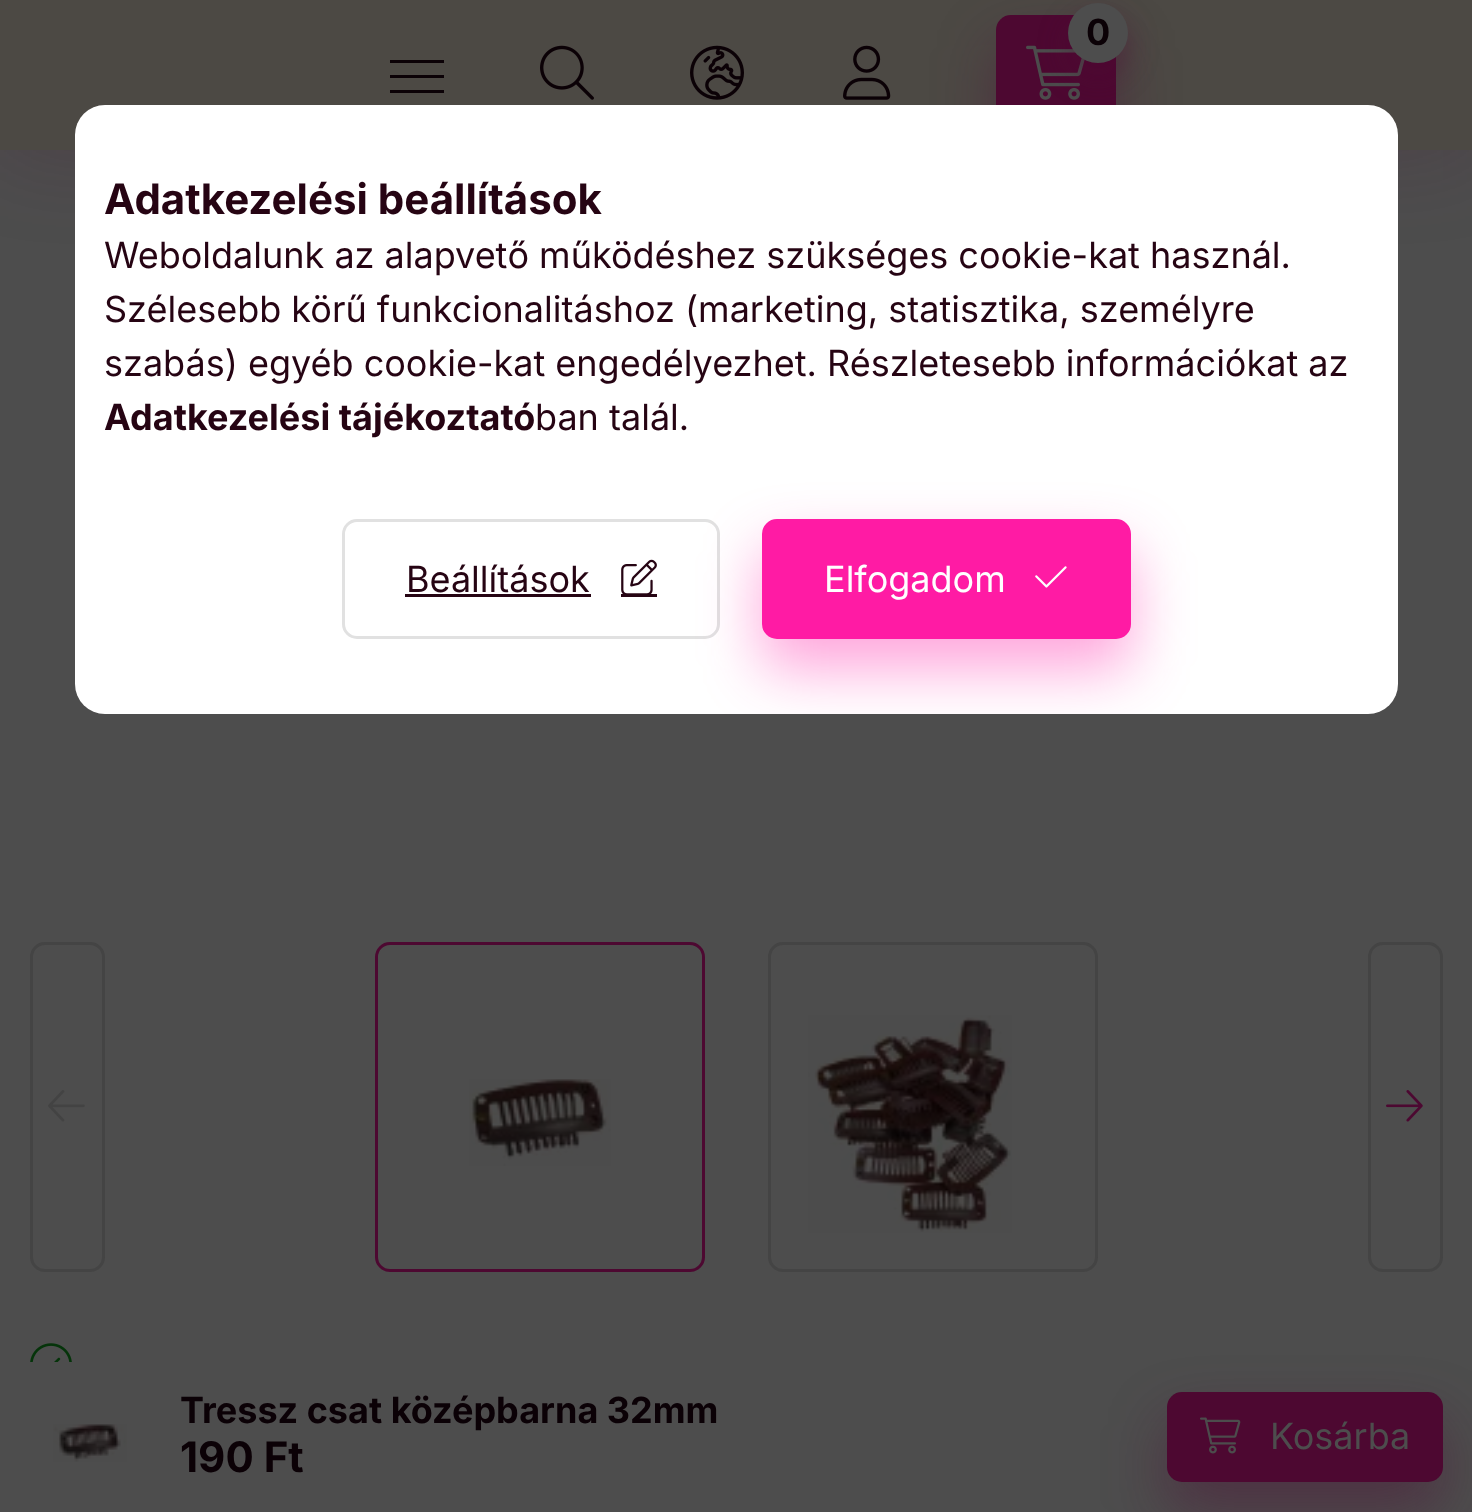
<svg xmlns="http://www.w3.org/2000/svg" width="1472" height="1512">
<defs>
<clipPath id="clip1"><rect x="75" y="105" width="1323" height="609" rx="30"/></clipPath>
</defs>
<rect width="100%" height="100%" fill="#4d4d4d"/>
<rect width="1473" height="150" fill="#4d083133" filter="blur(45px)"/>
<rect width="1472" height="150" fill="#4c4944"/>
<rect x="996" y="45" width="120" height="120" rx="15" fill="#4d083166" filter="blur(30px)"/>
<rect x="996" y="15" width="120" height="120" rx="15" fill="#4d0831"/>
<image x="1026" y="45" width="59" height="55" href="media/1.png"/>
<rect x="1068" y="18" width="60" height="60" rx="30" fill="#4d083166" filter="blur(15px)"/>
<circle cx="1098" cy="33" r="30" fill="#4d4d4d"/>
<text x="1086" y="45" style="font-family:Inter;font-size:36px;font-weight:bold;fill:#0b0106">0</text>
<rect x="390" y="60" width="54" height="3" fill="#0b0106"/>
<rect x="390" y="75" width="54" height="3" fill="#0b0106"/>
<rect x="390" y="90" width="54" height="3" fill="#0b0106"/>
<image x="540" y="45" width="54" height="55" href="media/2.png"/>
<image x="690" y="45" width="54" height="55" href="media/3.png"/>
<image x="843" y="45" width="48" height="55" href="media/4.png"/>
<rect x="31.5" y="943.5" width="72" height="327" rx="13.5" fill="none" stroke="#444" stroke-width="3"/>
<image x="48" y="1090" width="37" height="32" href="media/5.png"/>
<rect x="376.5" y="943.5" width="327" height="327" rx="13.5" fill="none" stroke="#4d0831" stroke-width="3"/>
<image x="469" y="1079" width="142" height="87" href="media/6.png"/>
<rect x="769.5" y="943.5" width="327" height="327" rx="13.5" fill="none" stroke="#444" stroke-width="3"/>
<image x="808" y="1015" width="204" height="218" href="media/7.png"/>
<rect x="1369.5" y="943.5" width="72" height="327" rx="13.5" fill="none" stroke="#444" stroke-width="3"/>
<image x="1386" y="1090" width="37" height="32" href="media/8.png"/>
<image x="30" y="1343" width="42" height="19" href="media/9.png"/>
<image x="53" y="1424" width="74" height="38" href="media/10.png"/>
<text x="180" y="1423" style="font-family:Inter;font-size:36px;font-weight:bold;fill:#0b0106">Tressz csat középbarna 32mm</text>
<text x="180" y="1472" style="font-family:Inter;font-size:42px;font-weight:bold;fill:#0b0106">190 Ft</text>
<rect x="1167" y="1422" width="276" height="90" rx="15" fill="#4d083166" filter="blur(30px)"/>
<rect x="1167" y="1392" width="276" height="90" rx="15" fill="#4d0831"/>
<image x="1200" y="1417" width="41" height="37" href="media/11.png"/>
<text x="1270" y="1449" style="font-family:Inter;font-size:36px;fill:#4d4d4d">Kosárba</text>
<rect x="75" y="105" width="1323" height="609" rx="30" fill="#fff"/>
<text x="104" y="214" style="font-family:Inter;font-size:42px;font-weight:bold;fill:#260413">Adatkezelési beállítások</text>
<text x="104" y="268" style="font-family:Inter;font-size:36px;fill:#260413">Weboldalunk az alapvető működéshez szükséges cookie-kat használ.</text>
<text x="104" y="322" style="font-family:Inter;font-size:36px;fill:#260413">Szélesebb körű funkcionalitáshoz (marketing, statisztika, személyre</text>
<text x="104" y="376" style="font-family:Inter;font-size:36px;fill:#260413">szabás) egyéb cookie-kat engedélyezhet. Részletesebb információkat az</text>
<text x="104" y="430" style="font-family:Inter;font-size:36px;font-weight:bold;fill:#260413">Adatkezelési tájékoztató</text>
<text x="535" y="430" style="font-family:Inter;font-size:36px;fill:#260413">ban talál.</text>
<rect x="343.5" y="520.5" width="375" height="117" rx="13.5" fill="none" stroke="#e1e1e1" stroke-width="3"/>
<text x="406" y="592" style="font-family:Inter;font-size:36px;fill:#260413">Beállítások</text>
<rect x="405" y="594" width="186" height="3" fill="#260413"/>
<image x="621" y="559" width="36" height="35" href="media/12.png"/>
<rect x="621" y="594" width="36" height="3" fill="#260413"/>
<g clip-path="url(#clip1)">
<rect x="762" y="549" width="369" height="120" rx="15" fill="#ff1ba466" filter="blur(30px)"/>
</g>
<rect x="763.5" y="520.5" width="366" height="117" rx="13.5" fill="#ff1ba4" stroke="#ff1ba4" stroke-width="3"/>
<text x="824" y="592" style="font-family:Inter;font-size:36px;fill:#fff">Elfogadom</text>
<image x="1035" y="566" width="32" height="22" href="media/13.png"/>
</svg>
